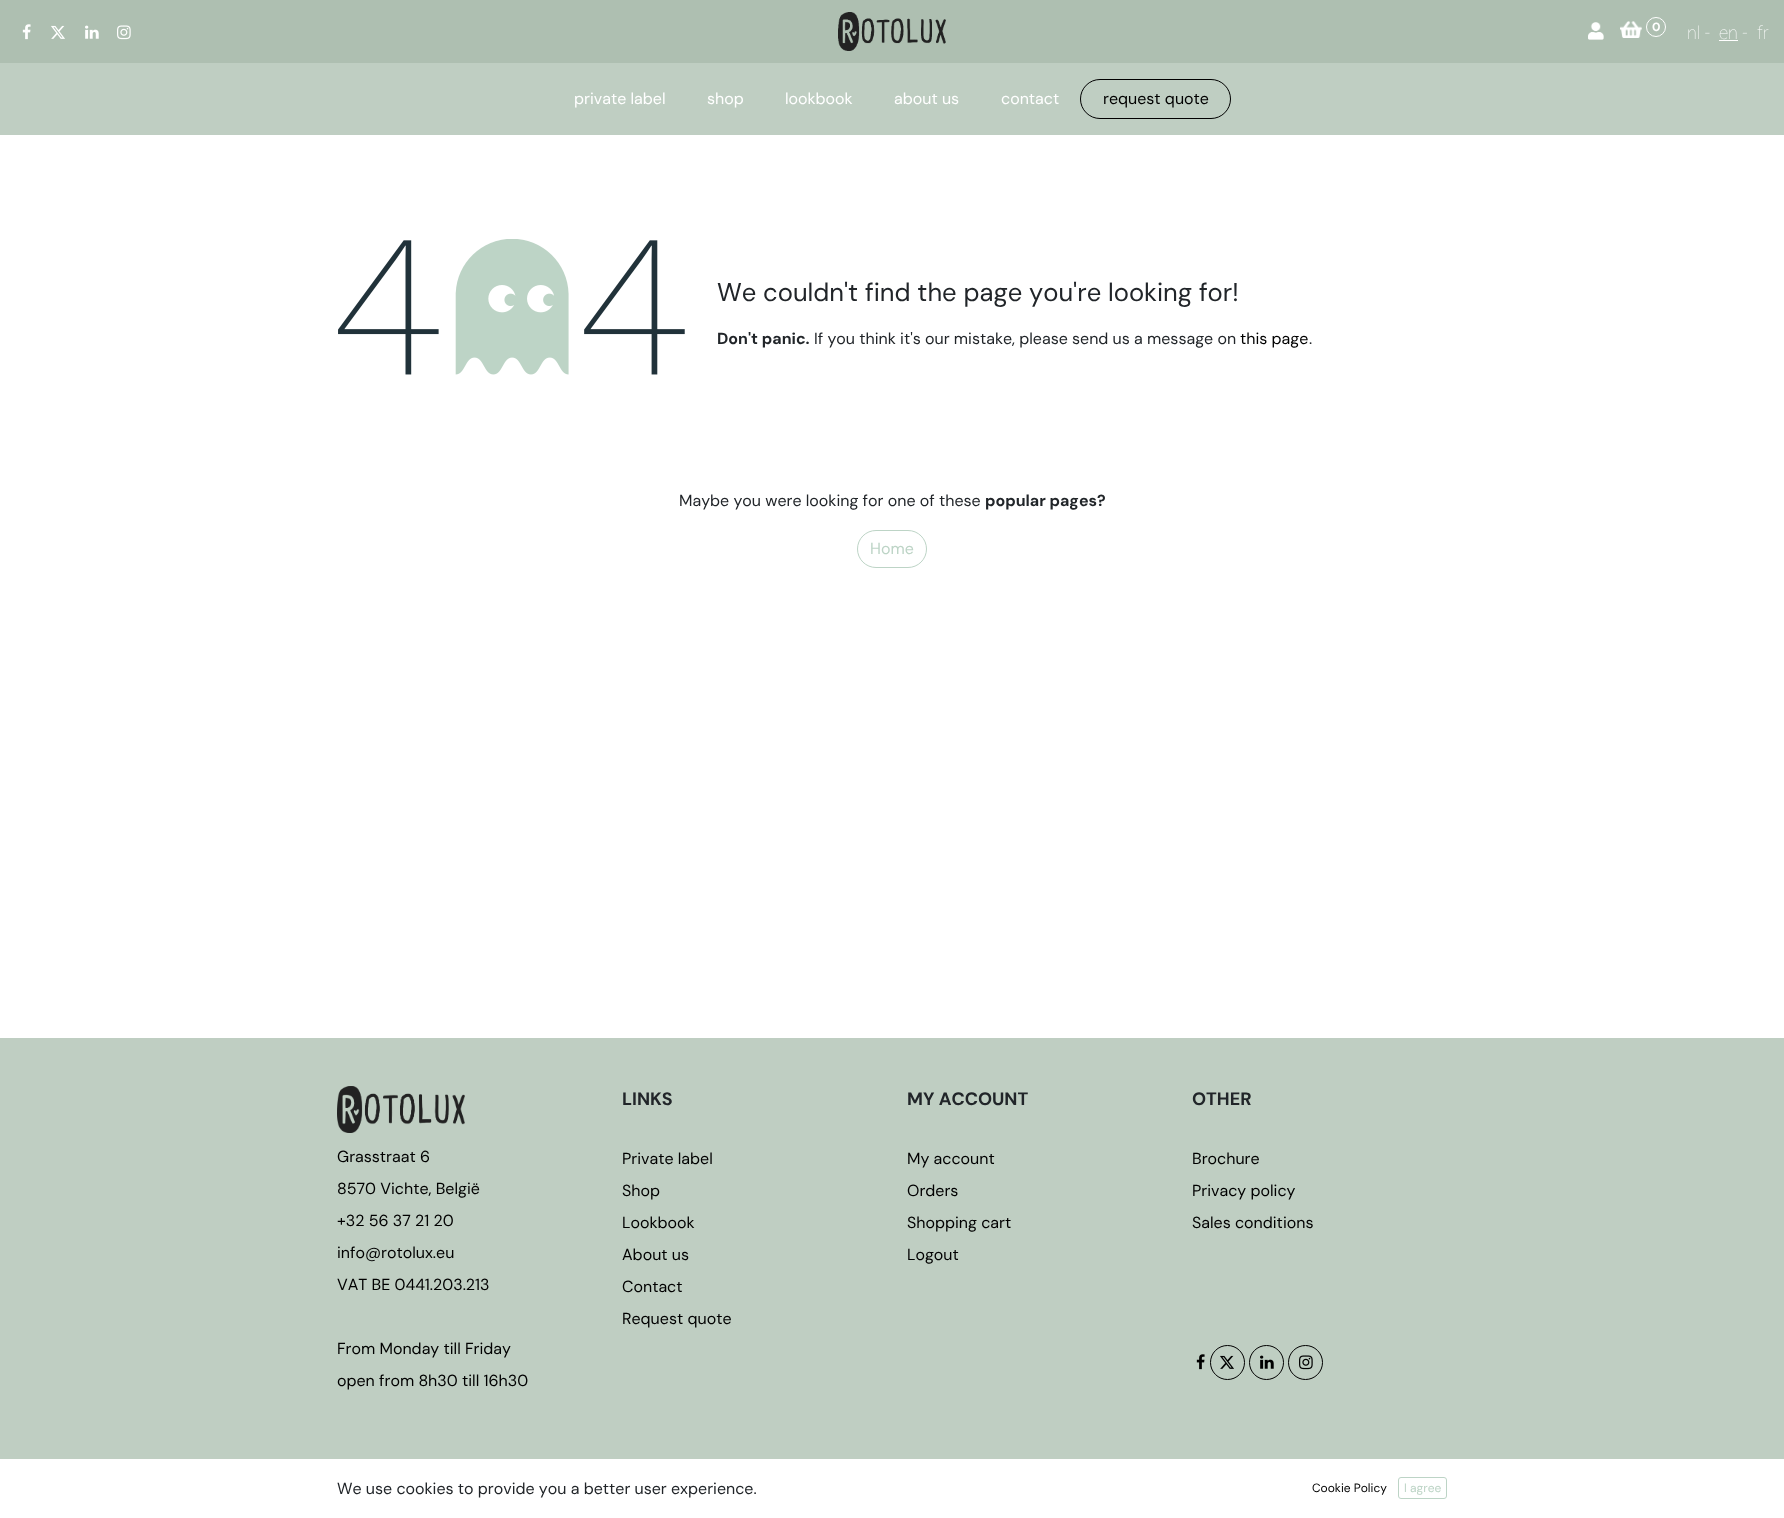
<svg xmlns="http://www.w3.org/2000/svg" width="1784" height="1518">
<style>*{font-kerning:none!important;font-variant-ligatures:none!important}</style>
<rect width="100%" height="100%" fill="#fff"/>
<rect y="63" width="1784" height="72" fill="#bfcec2"/>
<rect width="1784" height="63" fill="#aebfb1"/>
<image x="22" y="24" width="9" height="16" href="media/1.png"/>
<image x="51" y="25" width="14" height="14" href="media/2.png"/>
<image x="85" y="25" width="14" height="14" href="media/3.png"/>
<image x="117" y="25" width="14" height="15" href="media/4.png"/>
<image x="838" y="12" width="108" height="39" href="media/5.png"/>
<image x="1588" y="22" width="16" height="18" href="media/6.png"/>
<image x="1620" y="21" width="22" height="17" href="media/7.png"/>
<circle cx="1656" cy="27" r="9.5" fill="none" stroke="#fff"/>
<text x="1652" y="31" style="font-family:DM Sans;font-size:12px;font-weight:bold;fill:#fff">0</text>
<text x="1687" y="39" style="font-family:Roboto;font-size:18px;font-weight:100;fill:#fff">nl -</text>
<text x="1719" y="39" style="font-family:Roboto;font-size:18px;font-weight:100;fill:#fff">en -</text>
<rect x="1719" y="40" width="19" height="1" fill="#fff"/>
<text x="1757" y="39" style="font-family:Roboto;font-size:18px;font-weight:100;fill:#fff">fr</text>
<text x="574" y="104" style="font-family:DM Sans;font-size:16px;fill:#fff">private label</text>
<text x="707" y="104" style="font-family:DM Sans;font-size:16px;fill:#fff">shop</text>
<text x="785" y="104" style="font-family:DM Sans;font-size:16px;fill:#fff">lookbook</text>
<text x="894" y="104" style="font-family:DM Sans;font-size:16px;fill:#fff">about us</text>
<text x="1001" y="104" style="font-family:DM Sans;font-size:16px;fill:#fff">contact</text>
<rect x="1080.5" y="79.5" width="150" height="39" rx="19.5" fill="none" stroke="#000"/>
<text x="1103" y="104" style="font-family:DM Sans;font-size:16px;fill:#000">request quote</text>
<image x="338" y="239" width="347" height="136" href="media/8.png"/>
<text x="717" y="301" style="font-family:DM Sans;font-size:25.6px;fill:#212529">We couldn't find the page you're</text>
<text x="1108" y="301" style="font-family:DM Sans;font-size:25.6px;fill:#212529">looking for!</text>
<text x="717" y="344" style="font-family:DM Sans;font-size:16px;font-weight:bold;fill:#212529">Don't panic.</text>
<text x="814" y="344" style="font-family:DM Sans;font-size:16px;fill:#212529">If you think it's our mistake, please send us a message on</text>
<text x="1240" y="344" style="font-family:DM Sans;font-size:16px;fill:#000">this page</text>
<text x="1309" y="344" style="font-family:DM Sans;font-size:16px;fill:#212529">.</text>
<text x="679" y="506" style="font-family:DM Sans;font-size:16px;fill:#212529">Maybe you were looking for one of these</text>
<text x="985" y="506" style="font-family:DM Sans;font-size:16px;font-weight:bold;fill:#212529">popular pages?</text>
<rect x="857.5" y="530.5" width="69" height="37" rx="18.5" fill="none" stroke="#bdd4c6"/>
<text x="870" y="554" style="font-family:DM Sans;font-size:16px;fill:#bdd4c6">Home</text>
<rect y="1038" width="1784" height="421" fill="#bfcec2"/>
<image x="337" y="1086" width="128" height="47" href="media/9.png"/>
<text x="337" y="1162" style="font-family:DM Sans;font-size:16px;fill:#000">Grasstraat 6</text>
<text x="337" y="1194" style="font-family:DM Sans;font-size:16px;fill:#000">8570 Vichte, België</text>
<text x="337" y="1226" style="font-family:DM Sans;font-size:16px;fill:#000">+32 56 37 21 20</text>
<text x="337" y="1258" style="font-family:DM Sans;font-size:16px;fill:#000">info@rotolux.eu</text>
<text x="337" y="1290" style="font-family:DM Sans;font-size:16px;fill:#000">VAT BE 0441.203.213</text>
<text x="337" y="1354" style="font-family:DM Sans;font-size:16px;fill:#000">From Monday till Friday</text>
<text x="337" y="1386" style="font-family:DM Sans;font-size:16px;fill:#000">open from 8h30 till 16h30</text>
<text x="622" y="1105" style="font-family:DM Sans;font-size:18px;font-weight:bold;fill:#212529">LINKS</text>
<text x="622" y="1164" style="font-family:DM Sans;font-size:16px;fill:#000">Private label </text>
<text x="622" y="1196" style="font-family:DM Sans;font-size:16px;fill:#000">Shop</text>
<text x="622" y="1228" style="font-family:DM Sans;font-size:16px;fill:#000">Lookbook</text>
<text x="622" y="1260" style="font-family:DM Sans;font-size:16px;fill:#000">About us</text>
<text x="622" y="1292" style="font-family:DM Sans;font-size:16px;fill:#000">Contact</text>
<text x="622" y="1324" style="font-family:DM Sans;font-size:16px;fill:#000">Request quote</text>
<text x="907" y="1105" style="font-family:DM Sans;font-size:18px;font-weight:bold;fill:#212529">MY ACCOUNT</text>
<text x="907" y="1164" style="font-family:DM Sans;font-size:16px;fill:#000">My account</text>
<text x="907" y="1196" style="font-family:DM Sans;font-size:16px;fill:#000">Orders</text>
<text x="907" y="1228" style="font-family:DM Sans;font-size:16px;fill:#000">Shopping cart</text>
<text x="907" y="1260" style="font-family:DM Sans;font-size:16px;fill:#000">Logout</text>
<text x="1192" y="1105" style="font-family:DM Sans;font-size:18px;font-weight:bold;fill:#212529">OTHER</text>
<text x="1192" y="1164" style="font-family:DM Sans;font-size:16px;fill:#000">Brochure</text>
<text x="1192" y="1196" style="font-family:DM Sans;font-size:16px;fill:#000">Privacy policy</text>
<text x="1192" y="1228" style="font-family:DM Sans;font-size:16px;fill:#000">Sales conditions</text>
<image x="1196" y="1354" width="9" height="16" href="media/10.png"/>
<circle cx="1227.5" cy="1362.5" r="17" fill="none" stroke="#000"/>
<image x="1220" y="1355" width="14" height="14" href="media/11.png"/>
<circle cx="1266.5" cy="1362.5" r="17" fill="none" stroke="#000"/>
<image x="1260" y="1355" width="14" height="14" href="media/12.png"/>
<circle cx="1305.5" cy="1362.5" r="17" fill="none" stroke="#000"/>
<image x="1299" y="1355" width="14" height="15" href="media/13.png"/>
<text x="337" y="1494" style="font-family:DM Sans;font-size:16px;fill:#212529">We use cookies to provide you a better user experience.</text>
<text x="1312" y="1492" style="font-family:DM Sans;font-size:12px;fill:#000">Cookie Policy</text>
<rect x="1398.5" y="1477.5" width="48" height="21" rx="2.5" fill="none" stroke="#bdd4c6"/>
<text x="1404" y="1492" style="font-family:DM Sans;font-size:12px;fill:#bdd4c6">I agree</text>
</svg>
